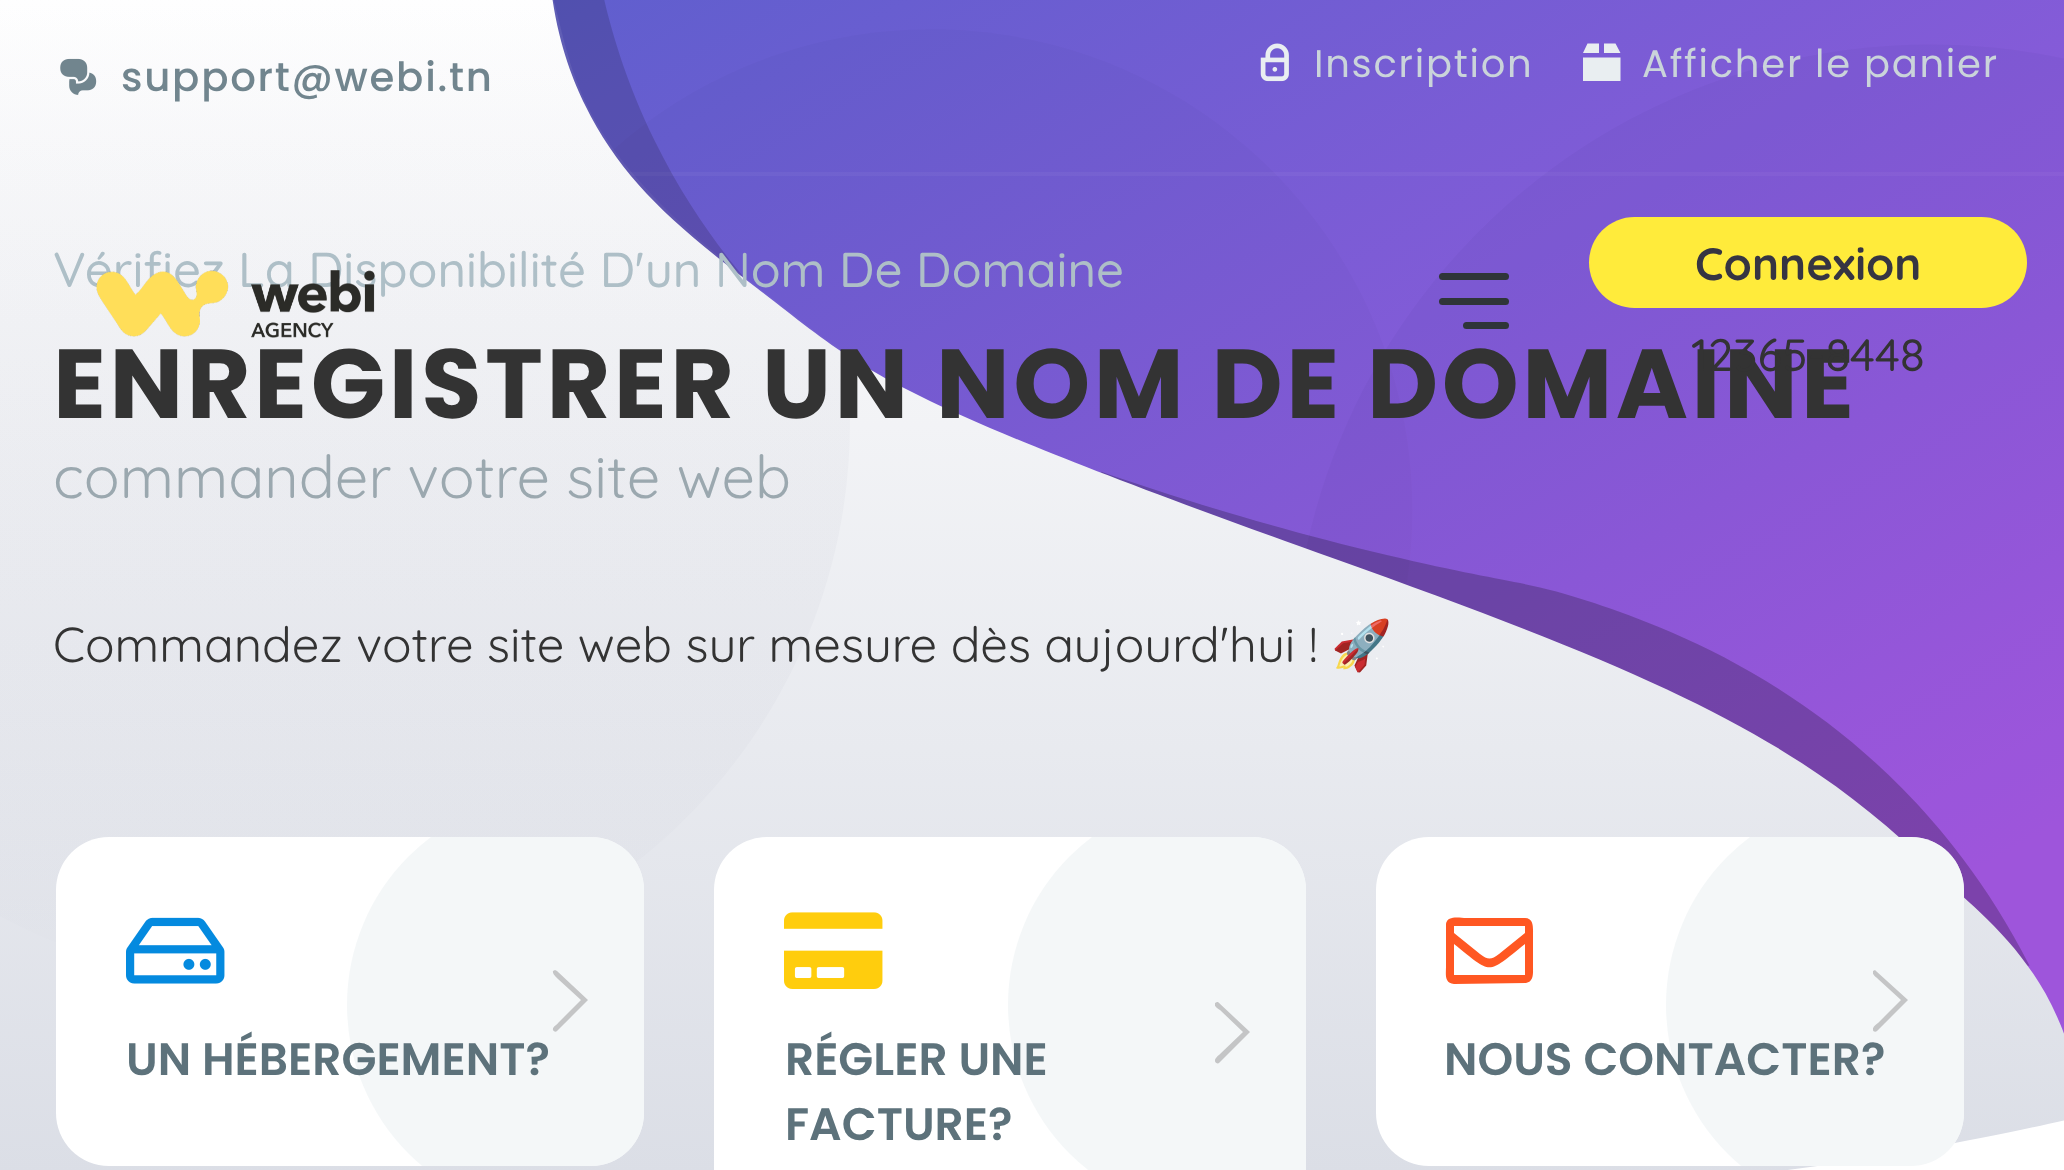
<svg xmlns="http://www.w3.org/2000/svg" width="2064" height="1170">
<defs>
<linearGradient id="g1" gradientUnits="userSpaceOnUse" x1="529" y1="-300" x2="1536" y2="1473"><stop offset="0" stop-color="#5360ca"/><stop offset="0.85" stop-color="#a458e1"/></linearGradient>
<linearGradient id="g2" gradientUnits="userSpaceOnUse" x1="529" y1="-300" x2="1536" y2="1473"><stop offset="0" stop-color="#5a66cc"/><stop offset="0.85" stop-color="#a85fe2"/></linearGradient>
<clipPath id="clip1"><rect x="56" y="837" width="588" height="329" rx="53"/></clipPath>
<clipPath id="clip2"><rect x="714" y="837" width="592" height="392" rx="53"/></clipPath>
<clipPath id="clip3"><rect x="1215" y="1001" width="35" height="63"/></clipPath>
<clipPath id="clip4"><rect x="1376" y="837" width="588" height="329" rx="53"/></clipPath>
<clipPath id="clip5"><rect x="1873" y="970" width="35" height="63"/></clipPath>
</defs>
<rect width="100%" height="100%" fill="#fff"/>
<rect x="552" width="1512" height="1034" fill="url(#g1)"/>
<rect x="627" y="172" width="1437" height="4" fill="url(#g2)"/>
<image x="0" y="0" width="2064" height="1170" href="media/1.png"/>
<image x="1788" y="1120" width="276" height="50" href="media/2.png"/>
<image x="60" y="58" width="37" height="37" href="media/3.png"/>
<text x="121" y="91" style="font-family:Poppins;font-size:40.25px;font-weight:500;letter-spacing:1.75px;fill:#71858e">support@webi.tn</text>
<image x="1260" y="43" width="29" height="39" href="media/4.png"/>
<text x="1314" y="77" style="font-family:Poppins;font-size:38.5px;letter-spacing:1.75px;fill:#cad4da">Inscription</text>
<path d="M1583 81v-23.5h37.5v23.5zm21-28v-9.5h11.5l5 9.5zm-5-9.5v9.5h-16l4.5-9.5z" fill="#e9eef1"/>
<text x="1642" y="77" style="font-family:Poppins;font-size:38.5px;letter-spacing:1.75px;fill:#cad4da">Afficher le panier</text>
<text x="53" y="287" style="font-family:Quicksand;font-size:49px;font-weight:500;fill:#aebfc7">Vérifiez La Disponibilité D'un Nom De Domaine</text>
<image x="96" y="270" width="279" height="68" href="media/5.png"/>
<rect x="1439" y="273" width="70" height="7" rx="3.5" fill="#2f3538"/>
<rect x="1439" y="298" width="70" height="7" rx="3.5" fill="#2f3538"/>
<rect x="1463" y="322" width="46" height="7" rx="3.5" fill="#2f3538"/>
<rect x="1589" y="217" width="438" height="91" rx="45.5" fill="#ffeb3b"/>
<text x="1695" y="280" style="font-family:Quicksand;font-size:45.5px;font-weight:bold;fill:#363542">Connexion</text>
<text x="53" y="418" style="font-family:Poppins;font-size:98px;font-weight:bold;letter-spacing:3.5px;fill:#333">ENREGISTRER UN NOM DE DOMAINE</text>
<text x="1691" y="371" style="font-family:Quicksand;font-size:45.5px;font-weight:500;fill:#333">12365-8448</text>
<text x="53" y="498" style="font-family:Quicksand;font-size:59.5px;fill:#9ba8af">commander votre site web</text>
<text x="53" y="662" style="font-family:Quicksand;font-size:49px;fill:#333">Commandez votre site web sur mesure dès aujourd'hui !</text>
<text x="1331" y="662" style="font-family:Noto Color Emoji;font-size:49px;fill:#333">🚀</text>
<rect x="56" y="837" width="588" height="329" rx="53" fill="#fff"/>
<image x="126" y="917" width="99" height="67" href="media/6.png"/>
<g clip-path="url(#clip1)">
<circle cx="557" cy="1005" r="210" fill="#f0f3f5b3"/>
</g>
<path d="M557 1031c-1 1-3 1-4-1c-1-3 5-6 5-7l23-23l-23-21c-1-1-6-5-5-8l2-1l2 1l31 29z" fill="#c4c5c6" fill-rule="evenodd"/>
<text x="126" y="1075" style="font-family:Poppins;font-size:45.5px;font-weight:600;fill:#5d727b">UN HÉBERGEMENT?</text>
<rect x="714" y="837" width="592" height="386" rx="53" fill="#fff"/>
<image x="784" y="912" width="99" height="77" href="media/7.png"/>
<g clip-path="url(#clip2)">
<circle cx="1218" cy="1005" r="210" fill="#f0f3f5b3"/>
</g>
<text x="785" y="1075" style="font-family:Poppins;font-size:45.5px;font-weight:600;fill:#5d727b">RÉGLER UNE</text>
<text x="785" y="1140" style="font-family:Poppins;font-size:45.5px;font-weight:600;fill:#5d727b">FACTURE?</text>
<g clip-path="url(#clip3)">
<path d="M1219 1063c-1 1-4 0-4-2c-1-2 4-6 5-7l23-22l-23-22c-1-1-7-4-5-7l2-1h1l32 30z" fill="#c4c5c6" fill-rule="evenodd"/>
</g>
<rect x="1376" y="837" width="588" height="329" rx="53" fill="#fff"/>
<g clip-path="url(#clip4)">
<circle cx="1876" cy="1005" r="210" fill="#f0f3f5b3"/>
</g>
<path d="M1525 918c9 0 8 10 8 16v33c0 6 1 15-7 16l-72 1c-10-1-8-10-8-17v-43c1-9 14-6 20-6zm0 8h-71v7l26 21c8 6 11 6 19 0l26-21zm-71 49h71v-31c-39 31-32 31-71 0z" fill="#ff5722"/>
<g clip-path="url(#clip5)">
<path d="M1877 1031c-1 1-4 1-4-1c-1-3 4-6 5-7l23-23l-23-21c-1-1-7-5-5-8l2-1l1 1l32 29z" fill="#c4c5c6" fill-rule="evenodd"/>
</g>
<text x="1444" y="1075" style="font-family:Poppins;font-size:45.5px;font-weight:600;fill:#5d727b">NOUS CONTACTER?</text>
</svg>
